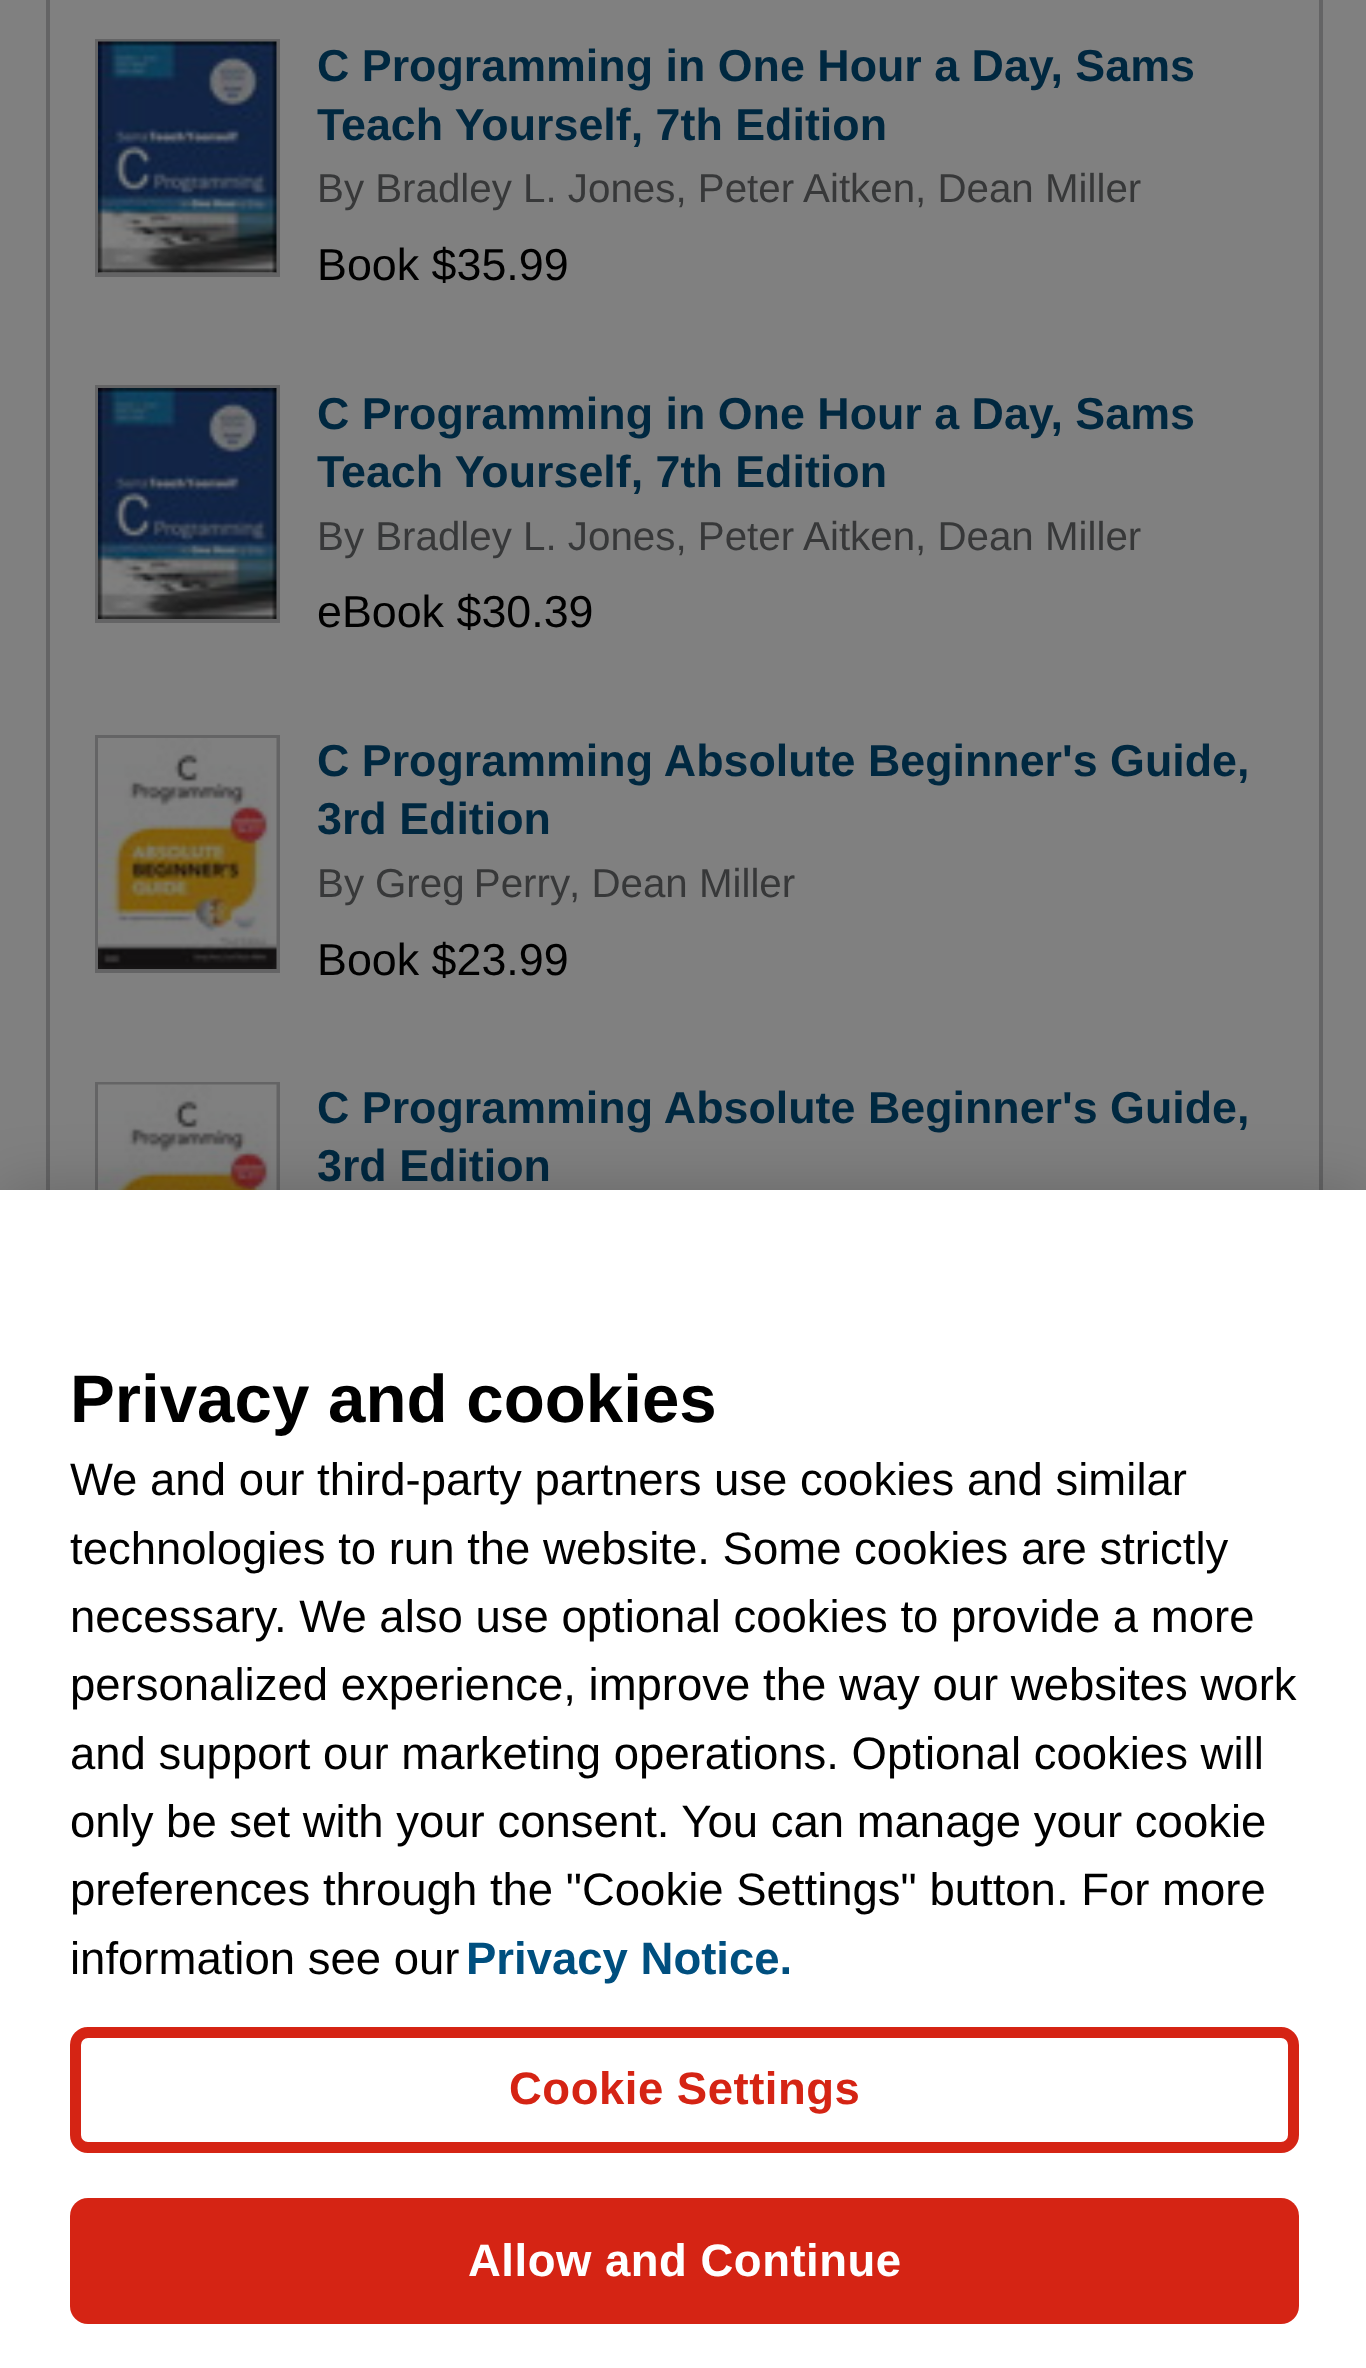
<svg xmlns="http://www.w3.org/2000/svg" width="1366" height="2368">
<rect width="100%" height="100%" fill="#808080"/>
<rect x="48" y="-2" width="1273" height="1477" fill="none" stroke="#646465" stroke-width="4"/>
<rect x="97" y="41" width="181" height="234" fill="none" stroke="#646465" stroke-width="4"/>
<image x="98" y="41" width="179" height="232" href="media/1.png"/>
<text x="317" y="81" style="font-family:Liberation Sans;font-size:44.8px;font-weight:bold;fill:#002840">C Programming in One Hour a Day, Sams</text>
<text x="317" y="140" style="font-family:Liberation Sans;font-size:44.8px;font-weight:bold;fill:#002840">Teach Yourself, 7th Edition</text>
<text x="317" y="202" style="font-family:Liberation Sans;font-size:40.3px;fill:#373839">By Bradley L. Jones, Peter Aitken, Dean Miller</text>
<text x="317" y="280" style="font-family:Liberation Sans;font-size:44.8px;fill:#000">Book $35.99</text>
<rect x="97" y="387" width="181" height="234" fill="none" stroke="#646465" stroke-width="4"/>
<image x="98" y="388" width="179" height="231" href="media/2.png"/>
<text x="317" y="429" style="font-family:Liberation Sans;font-size:44.8px;font-weight:bold;fill:#002840">C Programming in One Hour a Day, Sams</text>
<text x="317" y="487" style="font-family:Liberation Sans;font-size:44.8px;font-weight:bold;fill:#002840">Teach Yourself, 7th Edition</text>
<text x="317" y="550" style="font-family:Liberation Sans;font-size:40.3px;fill:#373839">By Bradley L. Jones, Peter Aitken, Dean Miller</text>
<text x="317" y="627" style="font-family:Liberation Sans;font-size:44.8px;fill:#000">eBook $30.39</text>
<rect x="97" y="737" width="181" height="234" fill="none" stroke="#646465" stroke-width="4"/>
<image x="98" y="738" width="179" height="231" href="media/3.png"/>
<text x="317" y="776" style="font-family:Liberation Sans;font-size:44.8px;font-weight:bold;fill:#002840">C Programming Absolute Beginner's Guide,</text>
<text x="317" y="834" style="font-family:Liberation Sans;font-size:44.8px;font-weight:bold;fill:#002840">3rd Edition</text>
<text x="317" y="897" style="font-family:Liberation Sans;font-size:40.3px;fill:#373839">By</text>
<text x="375" y="897" word-spacing="-2" style="font-family:Liberation Sans;font-size:40.3px;fill:#373839">Greg Perry</text>
<text x="569" y="897" style="font-family:Liberation Sans;font-size:40.3px;fill:#373839">, Dean Miller</text>
<text x="317" y="975" style="font-family:Liberation Sans;font-size:44.8px;fill:#000">Book $23.99</text>
<rect x="97" y="1084" width="181" height="234" fill="none" stroke="#646465" stroke-width="4"/>
<image x="98" y="1084" width="179" height="106" href="media/4.png"/>
<text x="317" y="1123" style="font-family:Liberation Sans;font-size:44.8px;font-weight:bold;fill:#002840">C Programming Absolute Beginner's Guide,</text>
<text x="317" y="1181" style="font-family:Liberation Sans;font-size:44.8px;font-weight:bold;fill:#002840">3rd Edition</text>
<rect y="1190" width="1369" height="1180" fill="#00000033" filter="blur(31.5px)"/>
<rect y="1190" width="1366" height="1178" fill="#fff"/>
<text x="70" y="1422" style="font-family:Liberation Sans;font-size:67.25px;font-weight:bold;fill:#000">Privacy and cookies</text>
<text x="70" y="1495" style="font-family:Liberation Sans;font-size:45.5px;fill:#000">We and our third-party partners use cookies and similar</text>
<text x="70" y="1564" style="font-family:Liberation Sans;font-size:45.5px;fill:#000">technologies to run the website. Some cookies are strictly</text>
<text x="70" y="1632" style="font-family:Liberation Sans;font-size:45.5px;fill:#000">necessary. We also use optional cookies to provide a more</text>
<text x="70" y="1700" style="font-family:Liberation Sans;font-size:45.5px;fill:#000">personalized experience, improve the way our websites work</text>
<text x="70" y="1769" style="font-family:Liberation Sans;font-size:45.5px;fill:#000">and support our marketing operations. Optional cookies will</text>
<text x="70" y="1837" style="font-family:Liberation Sans;font-size:45.5px;fill:#000">only be set with your consent. You can manage your cookie</text>
<text x="70" y="1905" style="font-family:Liberation Sans;font-size:45.5px;fill:#000">preferences through the "Cookie Settings" button. For more</text>
<text x="70" y="1974" style="font-family:Liberation Sans;font-size:45.5px;fill:#000">information see our</text>
<text x="466" y="1974" style="font-family:Liberation Sans;font-size:45.5px;font-weight:bold;fill:#004f7f">Privacy Notice.</text>
<rect x="75.5" y="2032.5" width="1218" height="115" rx="12.5" fill="none" stroke="#d52414" stroke-width="11"/>
<text x="509" y="2104" style="font-family:Liberation Sans;font-size:45.5px;font-weight:bold;letter-spacing:0.5px;fill:#d52414">Cookie Settings</text>
<rect x="70" y="2198" width="1229" height="126" rx="18" fill="#d52414"/>
<text x="468" y="2276" style="font-family:Liberation Sans;font-size:45.5px;font-weight:bold;letter-spacing:0.5px;fill:#fff">Allow and Continue</text>
</svg>
